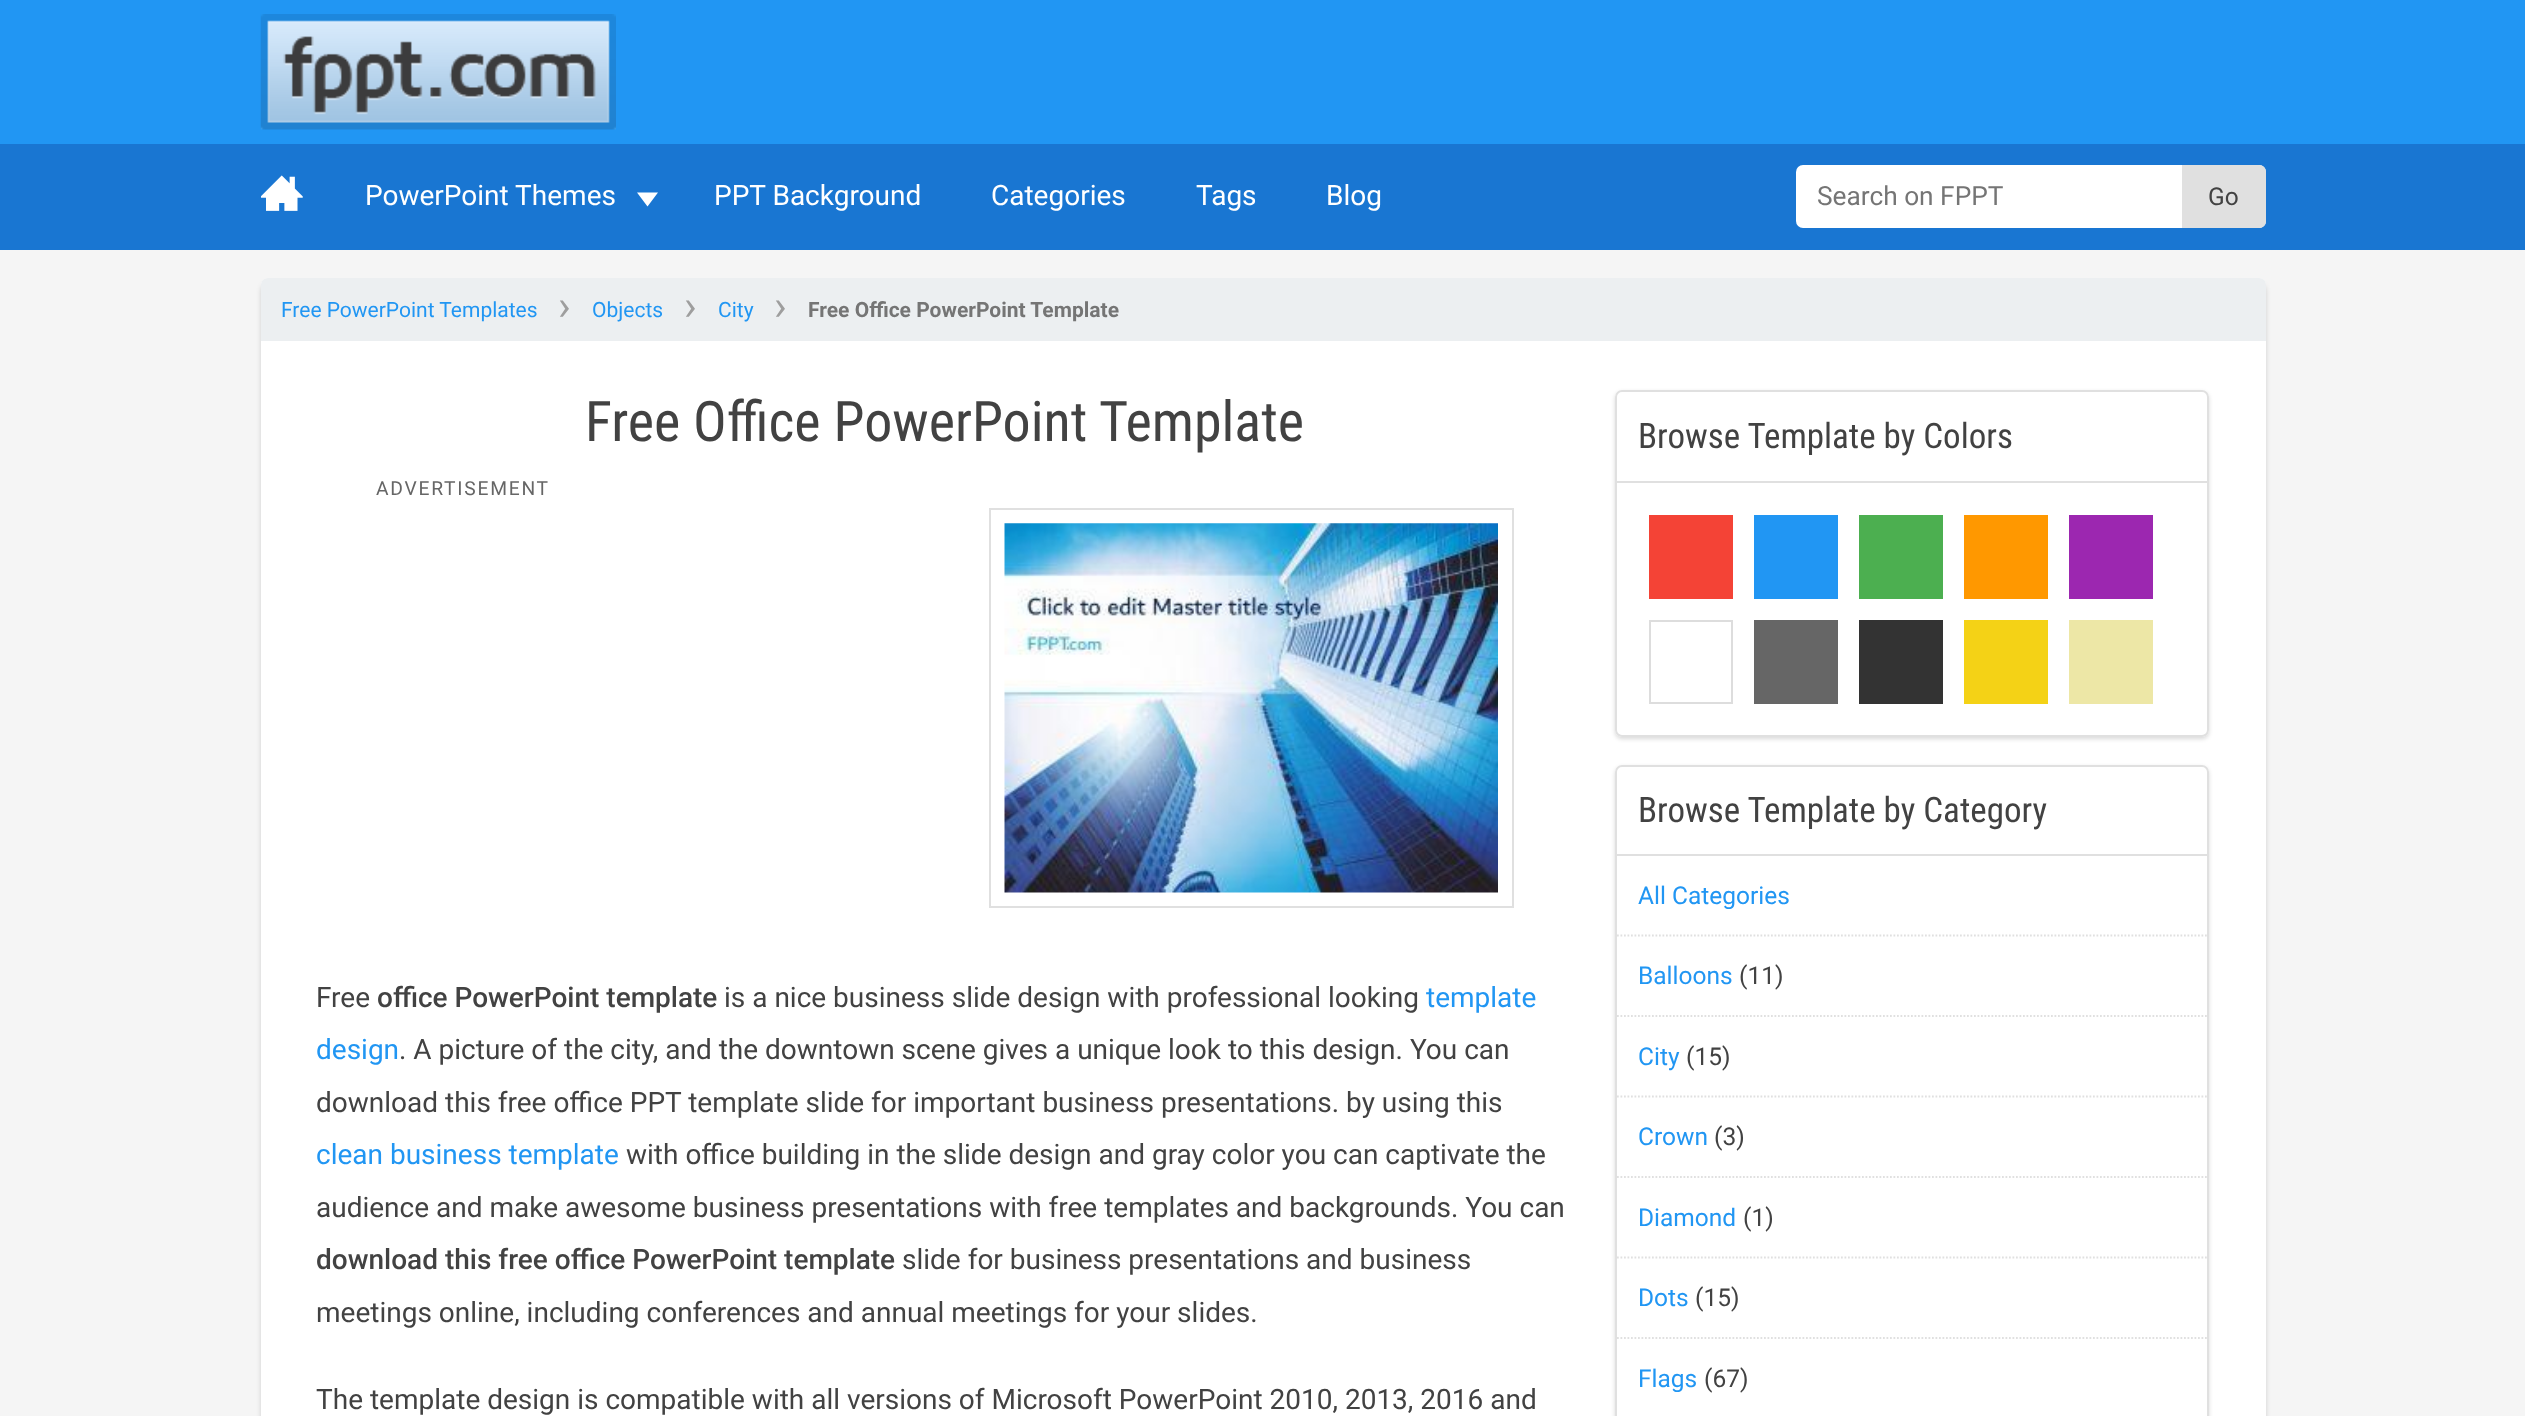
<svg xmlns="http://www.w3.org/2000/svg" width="2525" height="1416">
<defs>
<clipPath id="clip1"><path d="M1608 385h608v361h-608zm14 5h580c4 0 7 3 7 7v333c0 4-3 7-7 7h-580c-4 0-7-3-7-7v-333c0-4 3-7 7-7z" clip-rule="evenodd"/></clipPath>
<clipPath id="clip2"><path d="M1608 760h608v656h-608zm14 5h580c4 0 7 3 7 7v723c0 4-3 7-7 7h-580c-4 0-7-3-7-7v-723c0-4 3-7 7-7z" clip-rule="evenodd"/></clipPath>
</defs>
<rect width="100%" height="100%" fill="#f5f5f5"/>
<rect width="2525" height="144" fill="#2196f3"/>
<image x="260" y="14" width="356" height="116" href="media/1.png"/>
<rect y="144" width="2525" height="106" fill="#1976d2"/>
<image x="261" y="175" width="42" height="36" href="media/2.png"/>
<text x="365" y="205" style="font-family:Roboto;font-size:28px;fill:#fff">PowerPoint Themes</text>
<path d="M637 192.5h21l-10.5 14z" fill="#fff"/>
<text x="714" y="205" style="font-family:Roboto;font-size:28px;fill:#fff">PPT Background</text>
<text x="991" y="205" style="font-family:Roboto;font-size:28px;fill:#fff">Categories</text>
<text x="1196" y="205" style="font-family:Roboto;font-size:28px;fill:#fff">Tags</text>
<text x="1326" y="205" style="font-family:Roboto;font-size:28px;fill:#fff">Blog</text>
<rect x="1796" y="165" width="470" height="63" rx="7" fill="#fff"/>
<text x="1817" y="205" style="font-family:Roboto;font-size:26.25px;fill:#757575">Search on FPPT</text>
<path d="M2182 165h77c4 0 7 3 7 7v49c0 4-3 7-7 7h-77z" fill="#e0e0e0"/>
<text x="2208" y="205" style="font-family:Roboto;font-size:24.5px;fill:#424242">Go</text>
<rect x="261" y="284" width="2005" height="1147" rx="7" fill="#00000026" filter="blur(2.5px)"/>
<rect x="261" y="278" width="2005" height="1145" rx="7" fill="#fff"/>
<path d="M268 278h1991c4 0 7 3 7 7v56h-2005v-56c0-4 3-7 7-7z" fill="#eceff1"/>
<text x="281" y="317" style="font-family:Roboto;font-size:21px;fill:#2196f3">Free PowerPoint Templates</text>
<text x="558" y="320" style="font-family:Roboto;font-size:42px;fill:#9e9e9e">›</text>
<text x="592" y="317" style="font-family:Roboto;font-size:21px;fill:#2196f3">Objects</text>
<text x="684" y="320" style="font-family:Roboto;font-size:42px;fill:#9e9e9e">›</text>
<text x="718" y="317" style="font-family:Roboto;font-size:21px;fill:#2196f3">City</text>
<text x="774" y="320" style="font-family:Roboto;font-size:42px;fill:#9e9e9e">›</text>
<text x="808" y="317" style="font-family:Roboto;font-size:21px;font-weight:bold;fill:#757575">Free Office PowerPoint Template</text>
<text x="585" y="441" style="font-family:Roboto Condensed;font-size:56px;fill:#424242">Free Office PowerPoint Template</text>
<text x="376" y="495" style="font-family:Roboto;font-size:19.25px;letter-spacing:1.75px;fill:#666">ADVERTISEMENT</text>
<rect x="990" y="509" width="523" height="398" fill="none" stroke="#e0e0e0" stroke-width="2"/>
<image x="1004" y="523" width="494" height="370" href="media/3.png"/>
<text x="316" y="1007" style="font-family:Roboto;font-size:28px;fill:#424242">Free</text>
<text x="377" y="1007" style="font-family:Roboto;font-size:28px;font-weight:500;fill:#424242">office PowerPoint template</text>
<text x="724" y="1007" style="font-family:Roboto;font-size:28px;fill:#424242">is a nice business slide design with professional looking</text>
<text x="1426" y="1007" style="font-family:Roboto;font-size:28px;fill:#2196f3">template</text>
<text x="316" y="1059" style="font-family:Roboto;font-size:28px;fill:#2196f3">design</text>
<text x="399" y="1059" style="font-family:Roboto;font-size:28px;fill:#424242">. A picture of the city, and the downtown scene gives a unique look to this design. You can</text>
<text x="316" y="1112" style="font-family:Roboto;font-size:28px;fill:#424242">download this free office PPT template slide for important business presentations. by using this</text>
<text x="316" y="1164" style="font-family:Roboto;font-size:28px;fill:#2196f3">clean business template</text>
<text x="626" y="1164" style="font-family:Roboto;font-size:28px;fill:#424242">with office building in the slide design and gray color you can captivate the</text>
<text x="316" y="1217" style="font-family:Roboto;font-size:28px;fill:#424242">audience and make awesome business presentations with free templates and backgrounds. You can</text>
<text x="316" y="1269" style="font-family:Roboto;font-size:28px;font-weight:500;fill:#424242">download this free office PowerPoint template</text>
<text x="902" y="1269" style="font-family:Roboto;font-size:28px;fill:#424242">slide for business presentations and business</text>
<text x="316" y="1322" style="font-family:Roboto;font-size:28px;fill:#424242">meetings online, including conferences and annual meetings for your slides.</text>
<text x="316" y="1409" style="font-family:Roboto;font-size:28px;fill:#424242">The template design is compatible with all versions of Microsoft PowerPoint 2010, 2013, 2016 and</text>
<g clip-path="url(#clip1)">
<rect x="1615" y="392" width="594" height="347" rx="7" fill="#00000026" filter="blur(2px)"/>
</g>
<rect x="1616" y="391" width="592" height="345" rx="6" fill="none" stroke="#e0e0e0" stroke-width="2"/>
<rect x="1617" y="481" width="590" height="2" fill="#e0e0e0"/>
<text x="1638" y="448" style="font-family:Roboto Condensed;font-size:35px;fill:#424242">Browse Template by Colors</text>
<rect x="1649" y="515" width="84" height="84" fill="#f44336"/>
<rect x="1754" y="515" width="84" height="84" fill="#2196f3"/>
<rect x="1859" y="515" width="84" height="84" fill="#4caf50"/>
<rect x="1964" y="515" width="84" height="84" fill="#ff9800"/>
<rect x="2069" y="515" width="84" height="84" fill="#9c27b0"/>
<rect x="1650" y="621" width="82" height="82" fill="none" stroke="#ddd" stroke-width="2"/>
<rect x="1754" y="620" width="84" height="84" fill="#666"/>
<rect x="1859" y="620" width="84" height="84" fill="#333"/>
<rect x="1964" y="620" width="84" height="84" fill="#f4d216"/>
<rect x="2069" y="620" width="84" height="84" fill="#ede7a6"/>
<g clip-path="url(#clip2)">
<rect x="1615" y="767" width="594" height="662" rx="7" fill="#00000026" filter="blur(2px)"/>
</g>
<rect x="1616" y="766" width="592" height="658" rx="6" fill="none" stroke="#e0e0e0" stroke-width="2"/>
<rect x="1617" y="854" width="590" height="2" fill="#e0e0e0"/>
<text x="1638" y="822" style="font-family:Roboto Condensed;font-size:35px;fill:#424242">Browse Template by Category</text>
<path d="M1617 935.5h590" fill="none" stroke="#e0e0e0" stroke-width="1.8" stroke-dasharray="1.75 1.75"/>
<text x="1638" y="904" style="font-family:Roboto;font-size:24.5px;fill:#2196f3">All Categories</text>
<path d="M1617 1016h590" fill="none" stroke="#e0e0e0" stroke-width="1.8" stroke-dasharray="1.75 1.75"/>
<text x="1638" y="984" style="font-family:Roboto;font-size:24.5px;fill:#2196f3">Balloons</text>
<text x="1739" y="984" style="font-family:Roboto;font-size:24.5px;fill:#424242">(11)</text>
<path d="M1617 1096.5h590" fill="none" stroke="#e0e0e0" stroke-width="1.8" stroke-dasharray="1.75 1.75"/>
<text x="1638" y="1065" style="font-family:Roboto;font-size:24.5px;fill:#2196f3">City</text>
<text x="1686" y="1065" style="font-family:Roboto;font-size:24.5px;fill:#424242">(15)</text>
<path d="M1617 1177h590" fill="none" stroke="#e0e0e0" stroke-width="1.8" stroke-dasharray="1.75 1.75"/>
<text x="1638" y="1145" style="font-family:Roboto;font-size:24.5px;fill:#2196f3">Crown</text>
<text x="1714" y="1145" style="font-family:Roboto;font-size:24.5px;fill:#424242">(3)</text>
<path d="M1617 1257.5h590" fill="none" stroke="#e0e0e0" stroke-width="1.8" stroke-dasharray="1.75 1.75"/>
<text x="1638" y="1226" style="font-family:Roboto;font-size:24.5px;fill:#2196f3">Diamond</text>
<text x="1743" y="1226" style="font-family:Roboto;font-size:24.5px;fill:#424242">(1)</text>
<path d="M1617 1338h590" fill="none" stroke="#e0e0e0" stroke-width="1.8" stroke-dasharray="1.75 1.75"/>
<text x="1638" y="1306" style="font-family:Roboto;font-size:24.5px;fill:#2196f3">Dots</text>
<text x="1695" y="1306" style="font-family:Roboto;font-size:24.5px;fill:#424242">(15)</text>
<text x="1638" y="1387" style="font-family:Roboto;font-size:24.5px;fill:#2196f3">Flags</text>
<text x="1704" y="1387" style="font-family:Roboto;font-size:24.5px;fill:#424242">(67)</text>
</svg>
